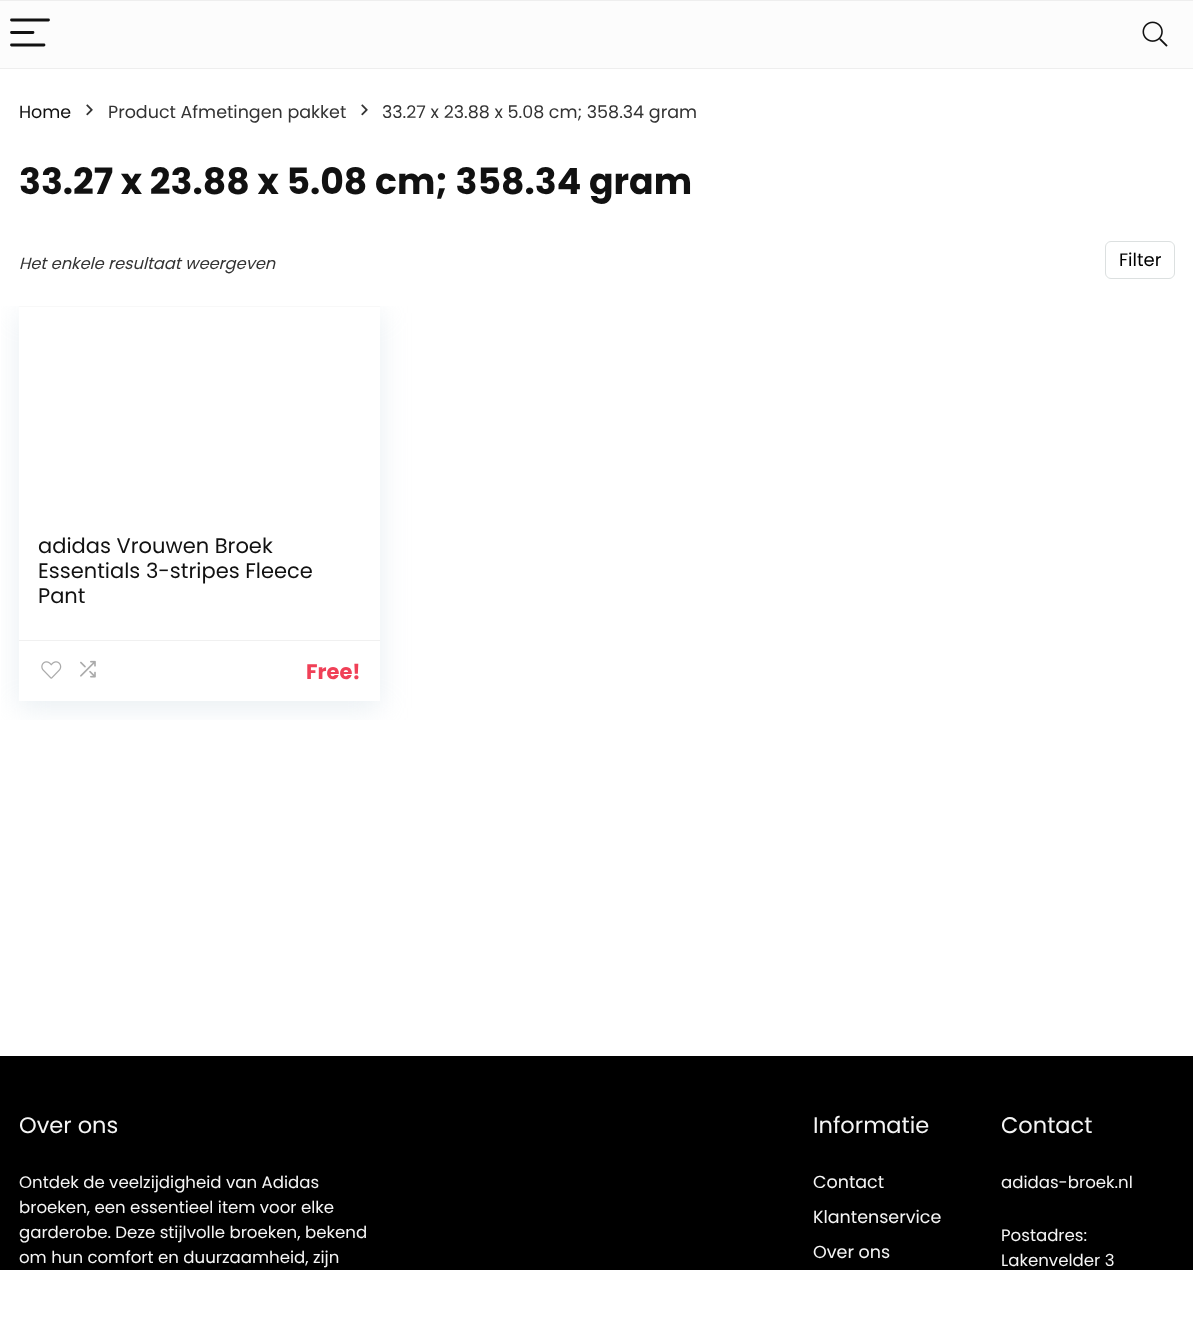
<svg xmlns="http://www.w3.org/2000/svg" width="1193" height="1338">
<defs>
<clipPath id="clip1"><rect x="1" y="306" width="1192" height="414"/></clipPath>
</defs>
<rect width="100%" height="100%" fill="#fff"/>
<rect y="1" width="1193" height="67" fill="#fcfcfc"/>
<rect width="1193" height="1" fill="#eee"/>
<rect y="68" width="1193" height="1" fill="#eee"/>
<path d="M11.5 20h37m-37 12.5h21.5m-21.5 12.5h32.5" fill="none" stroke="#111" stroke-width="2.8" stroke-linecap="round"/>
<image x="1142" y="21" width="26" height="26" href="media/1.png"/>
<rect y="1056" width="1193" height="214" fill="#000"/>
<rect y="1270" width="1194" height="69" fill="#0000001f" filter="blur(5.5px)"/>
<rect y="1270" width="1193" height="68" fill="#fff"/>
<text x="19" y="118" style="font-family:Poppins;font-size:17.5px;fill:#111">Home</text>
<image x="86" y="104" width="7" height="12" href="media/2.png"/>
<text x="108" y="118" style="font-family:Poppins;font-size:17.5px;fill:#333">Product Afmetingen pakket</text>
<image x="361" y="104" width="7" height="12" href="media/2.png"/>
<text x="382" y="118" style="font-family:Poppins;font-size:17.5px;fill:#333">33.27 x 23.88 x 5.08 cm; 358.34 gram</text>
<text x="19" y="194" style="font-family:Poppins;font-size:36.25px;font-weight:bold;fill:#111">33.27 x 23.88 x 5.08 cm; 358.34 gram</text>
<text x="19" y="269" style="font-family:Poppins;font-size:16.25px;font-style:italic;fill:#333">Het enkele resultaat weergeven</text>
<rect x="1105.5" y="241.5" width="69" height="37" rx="5.5" fill="none" stroke="#dce0e0"/>
<text x="1119" y="266" style="font-family:Poppins;font-size:18px;fill:#000">Filter</text>
<g clip-path="url(#clip1)">
<rect x="19" y="313" width="361" height="395" fill="#bccfdb59" filter="blur(14.5px)"/>
</g>
<rect x="19" y="307" width="361" height="394" fill="#fff"/>
<rect x="19" y="306" width="361" height="1" fill="#f8f8f8"/>
<text x="38" y="553" style="font-family:Poppins;font-size:21px;fill:#111">adidas Vrouwen Broek</text>
<text x="38" y="578" style="font-family:Poppins;font-size:21px;fill:#111">Essentials 3-stripes Fleece</text>
<text x="38" y="603" style="font-family:Poppins;font-size:21px;fill:#111">Pant</text>
<rect x="19" y="640" width="361" height="1" fill="#f0f0f0"/>
<image x="41" y="661" width="21" height="18" href="media/3.png"/>
<image x="80" y="660" width="16" height="18" href="media/4.png"/>
<text x="306" y="679" style="font-family:Poppins;font-size:21px;font-weight:bold;fill:#f04057">Free!</text>
<text x="19" y="1133" style="font-family:Poppins;font-size:22.5px;fill:#f5f5f5">Over ons</text>
<text x="19" y="1188" style="font-family:Poppins;font-size:16.6px;fill:#f5f5f5">Ontdek de veelzijdigheid van Adidas</text>
<text x="19" y="1213" style="font-family:Poppins;font-size:16.6px;fill:#f5f5f5">broeken, een essentieel item voor elke</text>
<text x="19" y="1238" style="font-family:Poppins;font-size:16.6px;fill:#f5f5f5">garderobe. Deze stijlvolle broeken, bekend</text>
<text x="19" y="1263" style="font-family:Poppins;font-size:16.6px;fill:#f5f5f5">om hun comfort en duurzaamheid, zijn</text>
<text x="813" y="1133" style="font-family:Poppins;font-size:22.5px;fill:#f5f5f5">Informatie</text>
<text x="813" y="1188" style="font-family:Poppins;font-size:17.5px;fill:#f5f5f5">Contact</text>
<text x="813" y="1223" style="font-family:Poppins;font-size:17.5px;fill:#f5f5f5">Klantenservice</text>
<text x="813" y="1258" style="font-family:Poppins;font-size:17.5px;fill:#f5f5f5">Over ons</text>
<text x="1001" y="1133" style="font-family:Poppins;font-size:22.5px;fill:#f5f5f5">Contact</text>
<text x="1001" y="1188" style="font-family:Poppins;font-size:16.6px;fill:#f5f5f5">adidas-broek.nl</text>
<text x="1001" y="1241" style="font-family:Poppins;font-size:16.6px;fill:#f5f5f5">Postadres:</text>
<text x="1001" y="1266" style="font-family:Poppins;font-size:16.6px;fill:#f5f5f5">Lakenvelder 3</text>
</svg>
